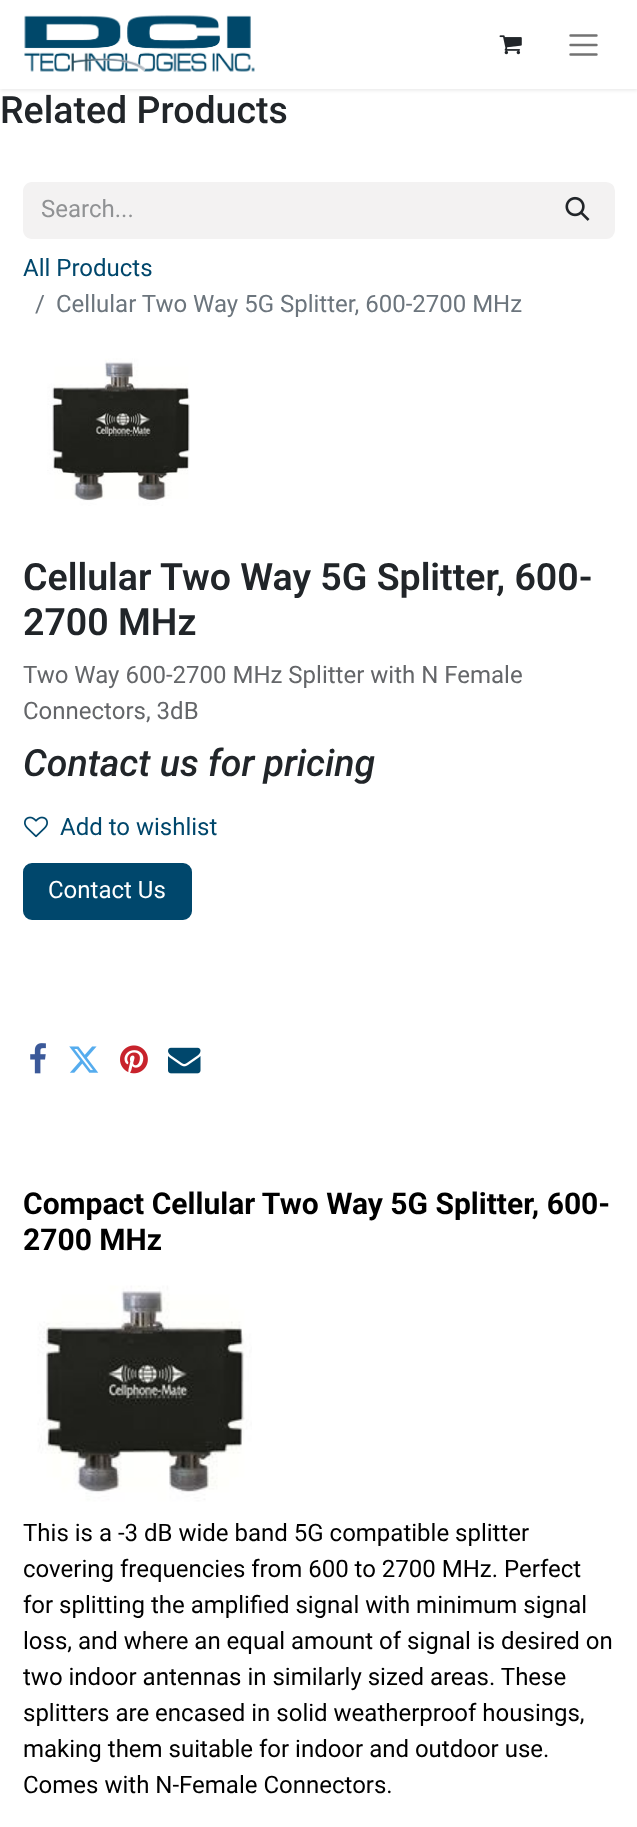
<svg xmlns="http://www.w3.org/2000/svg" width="637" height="1827">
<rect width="100%" height="100%" fill="#fff"/>
<rect y="2" width="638" height="88" fill="#0000001a" filter="blur(2px)"/>
<rect width="637" height="89" fill="#fff"/>
<image x="24" y="15" width="231" height="57" href="media/1.png"/>
<image x="499" y="35" width="23" height="20" href="media/2.png"/>
<path d="M570.5 35.5h26m-26 9.5h26m-26 9.5h26" fill="none" stroke="#737373" stroke-width="2.4" stroke-linecap="round"/>
<text x="0" y="123" style="font-family:Roboto;font-size:37.5px;font-weight:500;fill:#212529">Related Products</text>
<path d="M32 182h510v57h-510c-5 0-9-4-9-9v-39c0-5 4-9 9-9z" fill="#f3f2f2"/>
<text x="41" y="217" style="font-family:Roboto;font-size:24px;fill:#909294">Search...</text>
<path d="M541 183h65c4.5 0 8 3.5 8 8v39c0 4.5-3.5 8-8 8h-65z" fill="#f3f2f2" stroke="#f3f2f2" stroke-width="2"/>
<image x="565" y="196" width="25" height="25" href="media/3.png"/>
<text x="23" y="276" style="font-family:Roboto;font-size:24px;fill:#00476c">All Products</text>
<text x="35" y="312" style="font-family:Roboto;font-size:24px;fill:#6c757d">/</text>
<text x="56" y="312" style="font-family:Roboto;font-size:24px;fill:#6c757d">Cellular Two Way 5G Splitter, 600-2700 MHz</text>
<image x="47" y="358" width="143" height="148" href="media/4.png"/>
<text x="23" y="590" style="font-family:Roboto;font-size:37.5px;font-weight:600;fill:#212529">Cellular Two Way 5G Splitter, 600-</text>
<text x="23" y="635" style="font-family:Roboto;font-size:37.5px;font-weight:600;fill:#212529">2700 MHz</text>
<text x="23" y="683" style="font-family:Roboto;font-size:24px;fill:#646669">Two Way 600-2700 MHz Splitter with N Female</text>
<text x="23" y="719" style="font-family:Roboto;font-size:24px;fill:#646669">Connectors, 3dB</text>
<text x="23" y="776" style="font-family:Roboto;font-size:37.5px;font-weight:500;font-style:italic;fill:#212529">Contact us for pricing</text>
<image x="24" y="816" width="24" height="22" href="media/5.png"/>
<text x="60" y="835" style="font-family:Roboto;font-size:24px;fill:#00476c">Add to wishlist</text>
<rect x="24" y="864" width="167" height="55" rx="8" fill="#00476c" stroke="#00476c" stroke-width="2"/>
<text x="48" y="898" style="font-family:Roboto;font-size:24px;fill:#fff">Contact Us</text>
<image x="30" y="1043" width="16" height="31" href="media/6.png"/>
<image x="69" y="1046" width="30" height="27" href="media/7.png"/>
<image x="120" y="1045" width="28" height="29" href="media/8.png"/>
<image x="168" y="1047" width="33" height="27" href="media/9.png"/>
<text x="23" y="1214" style="font-family:Roboto;font-size:30px;font-weight:bold;fill:#000">Compact Cellular Two Way 5G Splitter, 600-</text>
<text x="23" y="1250" style="font-family:Roboto;font-size:30px;font-weight:bold;fill:#000">2700 MHz</text>
<image x="37" y="1285" width="215" height="217" href="media/10.png"/>
<text x="23" y="1541" style="font-family:Roboto;font-size:24px;fill:#000">This is a -3 dB wide band 5G compatible splitter</text>
<text x="23" y="1577" style="font-family:Roboto;font-size:24px;fill:#000">covering frequencies from 600 to 2700 MHz. Perfect</text>
<text x="23" y="1613" style="font-family:Roboto;font-size:24px;fill:#000">for splitting the amplified signal with minimum signal</text>
<text x="23" y="1649" style="font-family:Roboto;font-size:24px;fill:#000">loss, and where an equal amount of signal is desired on</text>
<text x="23" y="1685" style="font-family:Roboto;font-size:24px;fill:#000">two indoor antennas in similarly sized areas. These</text>
<text x="23" y="1721" style="font-family:Roboto;font-size:24px;fill:#000">splitters are encased in solid weatherproof housings,</text>
<text x="23" y="1757" style="font-family:Roboto;font-size:24px;fill:#000">making them suitable for indoor and outdoor use.</text>
<text x="23" y="1793" style="font-family:Roboto;font-size:24px;fill:#000">Comes with N-Female Connectors.</text>
</svg>
